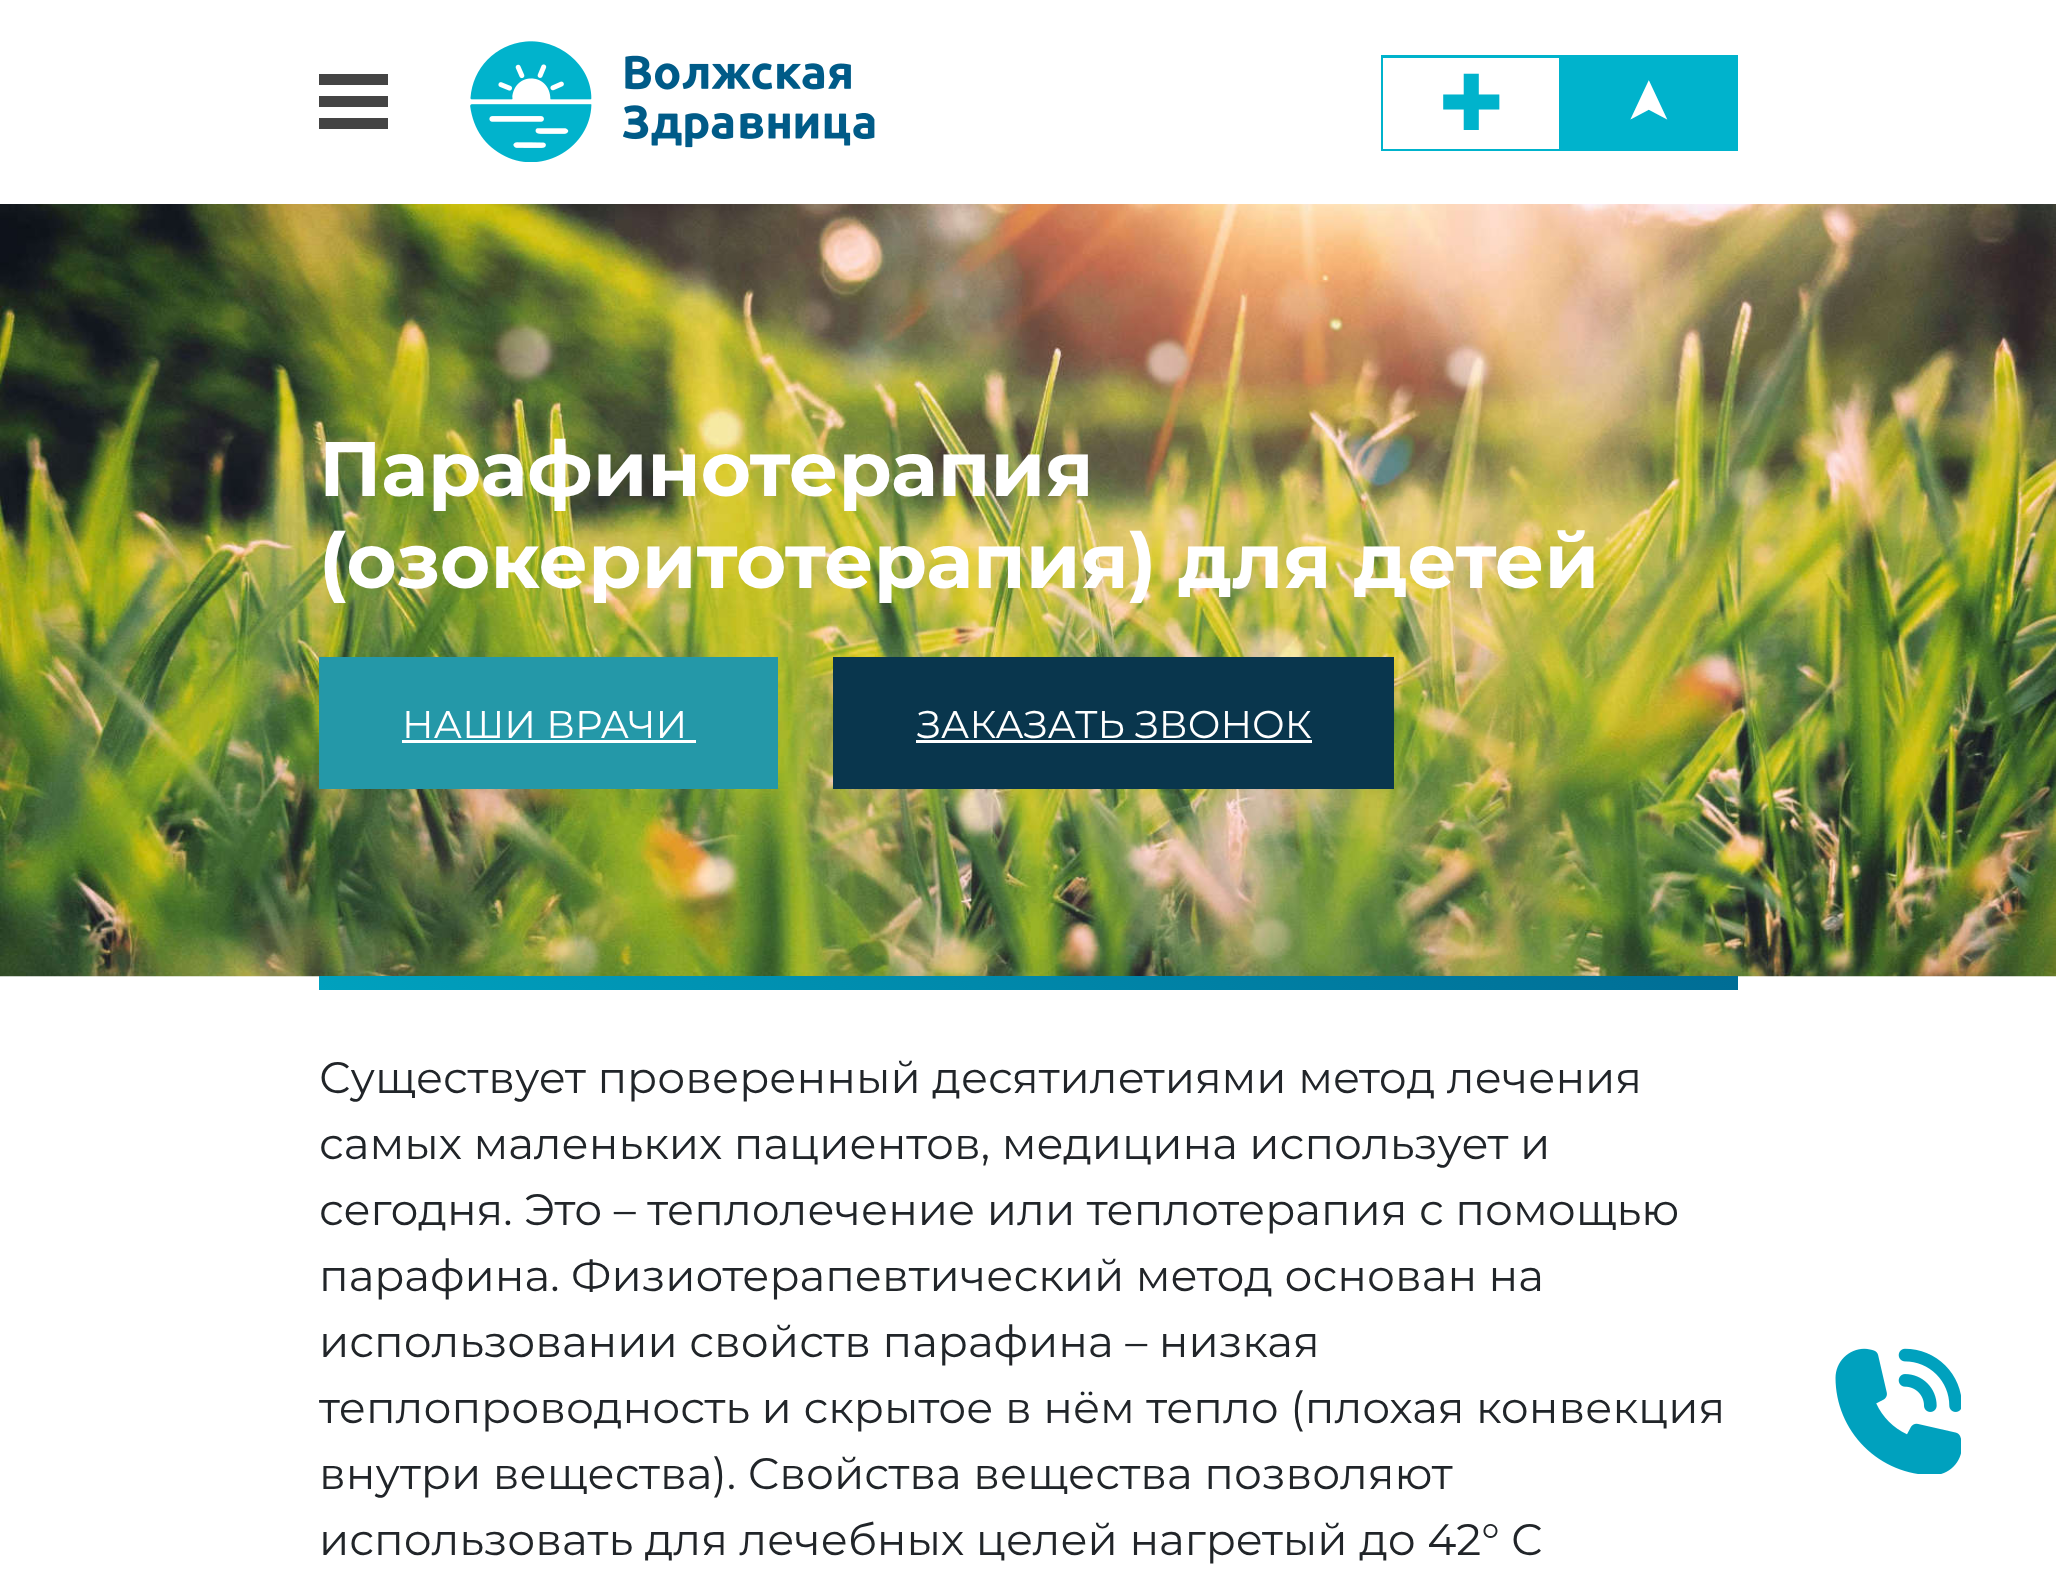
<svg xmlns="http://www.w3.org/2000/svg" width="2056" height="1570">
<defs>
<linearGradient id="g1" gradientUnits="userSpaceOnUse" x1="670" y1="1341" x2="1387" y2="625"><stop offset="0" stop-color="#00a1be"/><stop offset="1" stop-color="#006d95"/></linearGradient>
</defs>
<rect width="100%" height="100%" fill="#fff"/>
<rect x="319" y="74" width="69" height="11" fill="#444"/>
<rect x="319" y="96" width="69" height="11" fill="#444"/>
<rect x="319" y="118" width="69" height="11" fill="#444"/>
<image x="470" y="41" width="405" height="121" href="media/1.png"/>
<rect x="1382.5" y="56.5" width="354" height="93" fill="none" stroke="#00b3cc" stroke-width="3"/>
<rect x="1383" y="58" width="176" height="91" fill="#fff"/>
<text x="1439" y="130" style="font-family:DejaVu Sans;font-size:77px;fill:#00b3cc">✚</text>
<rect x="1559" y="58" width="176" height="90" fill="#00b3cc"/>
<text x="1667" y="126" transform="rotate(-90 1667 126)" style="font-family:DejaVu Sans;font-size:58px;fill:#fff">➤</text>
<image x="0" y="204" width="2056" height="773" href="media/2.png"/>
<text x="319" y="496" style="font-family:Montserrat;font-size:77px;font-weight:bold;fill:#fff">Парафинотерапия</text>
<text x="319" y="588" style="font-family:Montserrat;font-size:77px;font-weight:bold;fill:#fff">(озокеритотерапия) для детей</text>
<rect x="319" y="657" width="459" height="132" fill="#2498a8"/>
<text x="402" y="738" style="font-family:Montserrat;font-size:38.5px;fill:#fff">НАШИ ВРАЧИ</text>
<rect x="402" y="740" width="294" height="3" fill="#fff"/>
<rect x="833" y="657" width="561" height="132" fill="#09364d"/>
<text x="917" y="738" style="font-family:Montserrat;font-size:38.5px;fill:#fff">ЗАКАЗАТЬ ЗВОНОК</text>
<rect x="916" y="740" width="396" height="3" fill="#fff"/>
<rect x="319" y="976" width="1419" height="14" fill="url(#g1)"/>
<text x="319" y="1093" style="font-family:Montserrat;font-size:44px;fill:#212529">Существует проверенный десятилетиями метод лечения</text>
<text x="319" y="1159" style="font-family:Montserrat;font-size:44px;fill:#212529">самых маленьких пациентов, медицина использует и</text>
<text x="319" y="1225" style="font-family:Montserrat;font-size:44px;fill:#212529">сегодня. Это – теплолечение или теплотерапия с помощью</text>
<text x="319" y="1291" style="font-family:Montserrat;font-size:44px;fill:#212529">парафина. Физиотерапевтический метод основан на</text>
<text x="319" y="1357" style="font-family:Montserrat;font-size:44px;fill:#212529">использовании свойств парафина – низкая</text>
<text x="319" y="1423" style="font-family:Montserrat;font-size:44px;fill:#212529">теплопроводность и скрытое в нём тепло (плохая конвекция</text>
<text x="319" y="1489" style="font-family:Montserrat;font-size:44px;fill:#212529">внутри вещества). Свойства вещества позволяют</text>
<text x="319" y="1555" style="font-family:Montserrat;font-size:44px;fill:#212529">использовать для лечебных целей нагретый до 42° C</text>
<image x="1835" y="1348" width="126" height="126" href="media/3.png"/>
</svg>
